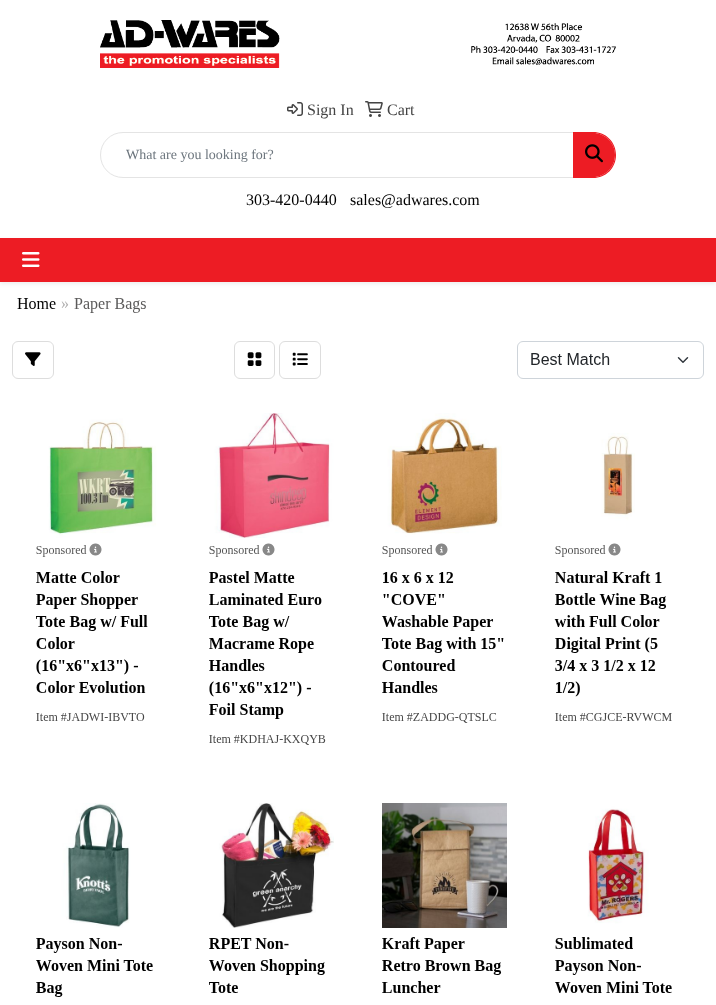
<svg xmlns="http://www.w3.org/2000/svg" width="716" height="1005">
<rect width="100%" height="100%" fill="#fff"/>
<image x="100" y="20" width="516" height="48" href="media/1.png"/>
<image x="287" y="102" width="16" height="14" href="media/2.png"/>
<text x="307" y="115" style="font-family:Liberation Serif;font-size:16px;fill:#444">Sign In</text>
<image x="365" y="101" width="18" height="16" href="media/3.png"/>
<text x="387" y="115" style="font-family:Liberation Serif;font-size:16px;fill:#444">Cart</text>
<path d="M123 132.5h450.5v45h-450.5c-12.5 0-22.5-10-22.5-22.5c0-12.5 10-22.5 22.5-22.5z" fill="none" stroke="#e4e4e4"/>
<text x="126" y="159" style="font-family:Liberation Serif;font-size:14px;fill:#6c757d">What are you looking for?</text>
<path d="M573 133h20c12 0 22 10 22 22c0 12-10 22-22 22h-20z" fill="#ed1c24"/>
<path d="M573 132h20c13 0 23 10 23 23c0 13-10 23-23 23h-20zm0 1h20c12 0 22 10 22 22c0 12-10 22-22 22h-20z" fill="#ed1c24" fill-rule="evenodd"/>
<image x="585" y="144" width="18" height="19" href="media/4.png"/>
<text x="246" y="205" style="font-family:Liberation Serif;font-size:16px;fill:#000">303-420-0440</text>
<text x="350" y="205" style="font-family:Liberation Serif;font-size:16px;fill:#000">sales@adwares.com</text>
<rect y="240" width="716" height="44" fill="#00000012" filter="blur(2px)"/>
<rect y="238" width="716" height="44" fill="#ed1c24"/>
<image x="22" y="252" width="18" height="15" href="media/5.png"/>
<image x="12" y="298" width="692" height="699" href="media/6.png"/>
</svg>
